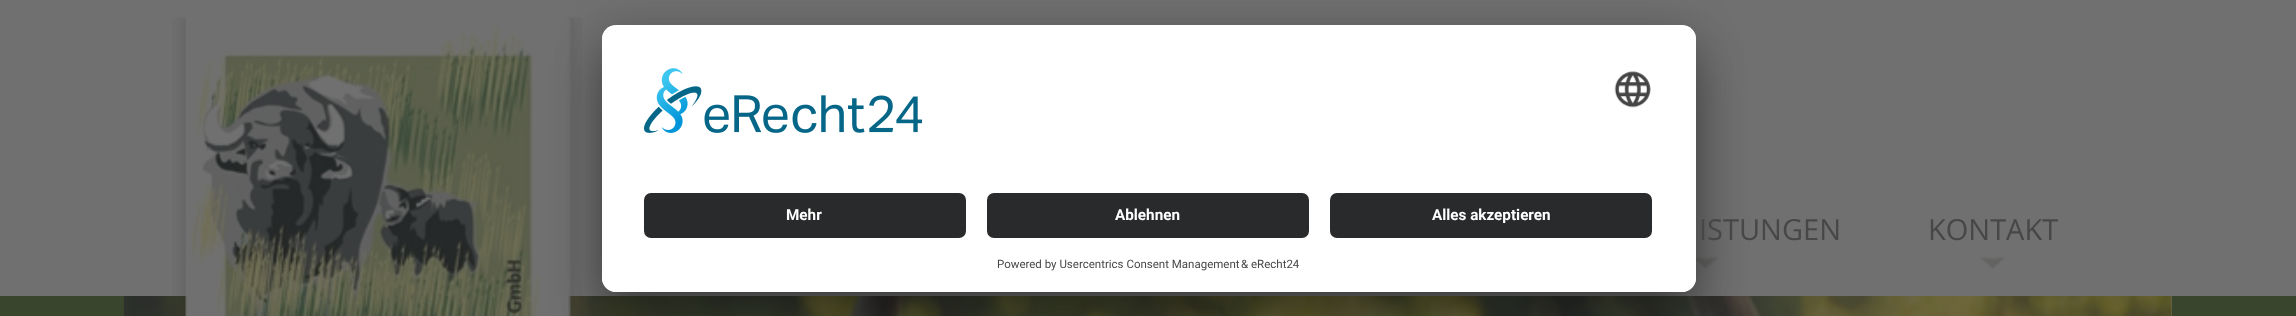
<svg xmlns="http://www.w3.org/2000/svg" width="2296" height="316">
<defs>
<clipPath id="clip1"><rect x="602" y="25" width="1094" height="267" rx="14"/></clipPath>
<clipPath id="clip2"><path d="M616 25h1066c7.5 0 14 6.5 14 14v140h-1094v-140c0-7.5 6.5-14 14-14z"/></clipPath>
</defs>
<rect width="100%" height="100%" fill="#3a452e"/>
<rect width="2296" height="296" fill="#707070"/>
<rect x="2171" y="296" width="1" height="20" fill="#707070"/>
<image x="124" y="296" width="2048" height="20" href="media/6.png"/>
<image x="172" y="17" width="410" height="299" href="media/3.png"/>
<image x="1696" y="257" width="23" height="12" href="media/4.png"/>
<rect x="602" y="60" width="1094" height="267" rx="14" fill="#0000004d" filter="blur(24.5px)"/>
<rect x="602" y="33" width="1094" height="268" rx="14" fill="#00000038" filter="blur(23px)"/>
<rect x="602" y="25" width="1094" height="267" rx="14" fill="#fff"/>
<g clip-path="url(#clip1)">
<g clip-path="url(#clip2)">
<rect x="602" y="26" width="1094" height="153" fill="#fff"/>
</g>
</g>
<image x="644" y="68" width="278" height="65" href="media/1.png"/>
<image x="1614" y="71" width="37" height="37" href="media/2.png"/>
<path d="M602 179h1094v99c0 7.5-6.5 14-14 14h-1066c-7.5 0-14-6.5-14-14z" fill="#fff"/>
<rect x="644" y="193" width="322" height="45" rx="7" fill="#292a2b"/>
<text x="786" y="220" style="font-family:Roboto;font-size:15.25px;font-weight:bold;fill:#fff">Mehr</text>
<rect x="987" y="193" width="322" height="45" rx="7" fill="#292a2b"/>
<text x="1115" y="220" style="font-family:Roboto;font-size:15.25px;font-weight:bold;fill:#fff">Ablehnen</text>
<rect x="1330" y="193" width="322" height="45" rx="7" fill="#292a2b"/>
<text x="1432" y="220" style="font-family:Roboto;font-size:15.25px;font-weight:bold;fill:#fff">Alles akzeptieren</text>
<text x="997" y="268" style="font-family:Roboto;font-size:11.5px;fill:#474747">Powered by Usercentrics Consent Management</text>
<text x="1241" y="268" style="font-family:Roboto;font-size:11.5px;fill:#474747">&amp; eRecht24</text>
<text x="1699" y="240" style="font-family:Open Sans;font-size:29px;fill:#474747">ISTUNGEN</text>
<text x="1928" y="240" style="font-family:Open Sans;font-size:29px;fill:#474747">KONTAKT</text>
<image x="1980" y="257" width="26" height="12" href="media/5.png"/>
</svg>
